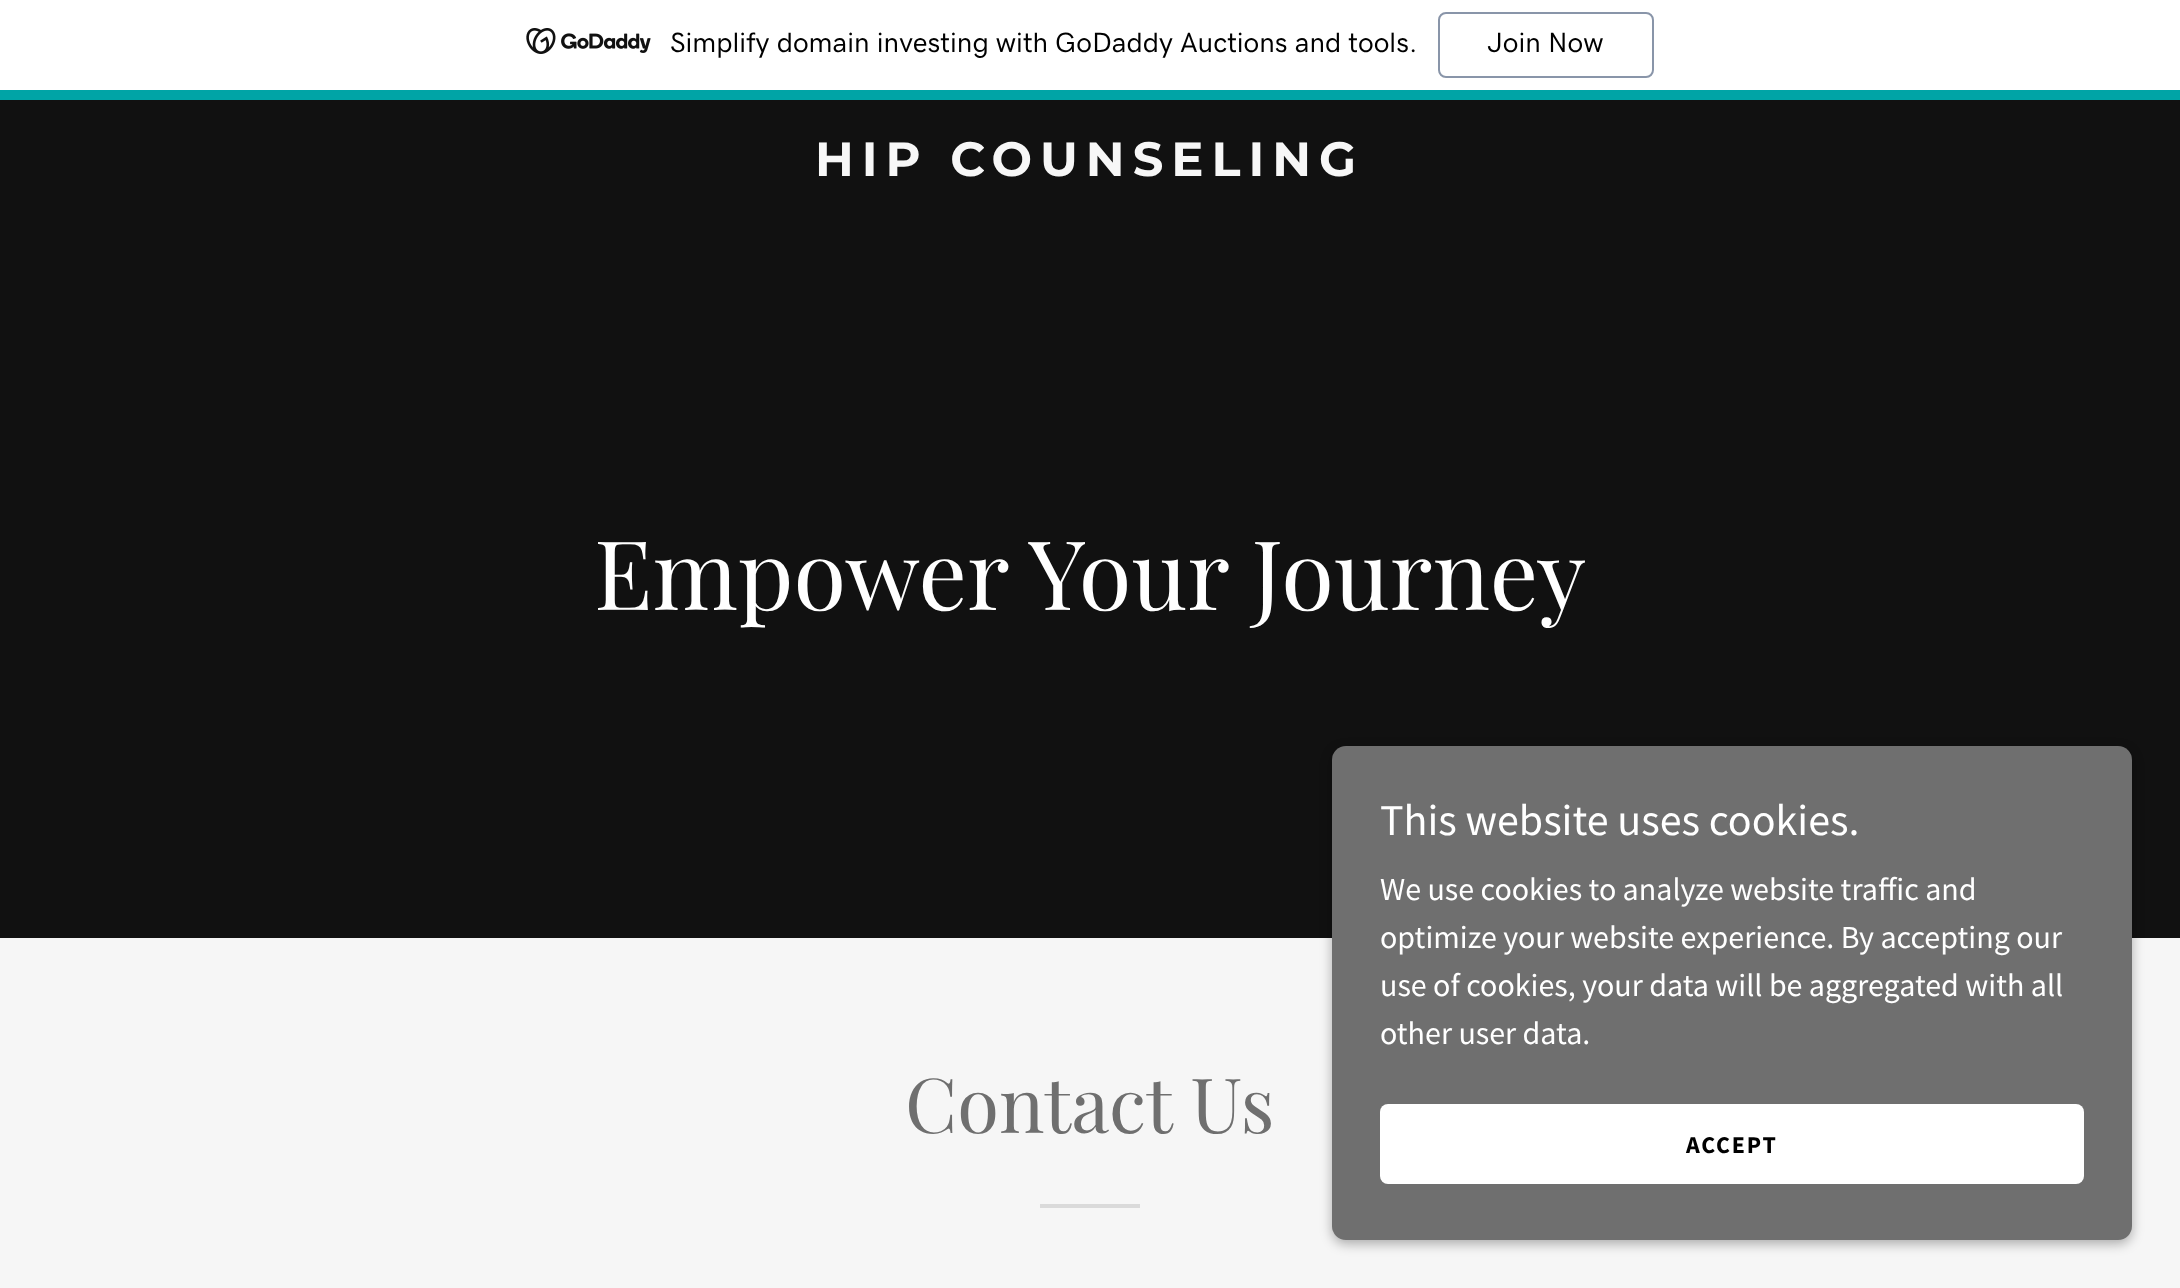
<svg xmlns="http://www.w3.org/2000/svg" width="2180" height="1288">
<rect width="100%" height="100%" fill="#f6f6f6"/>
<rect width="2180" height="90" fill="#fff"/>
<rect y="90" width="2180" height="10" fill="#00a4a6"/>
<image x="526" y="28" width="125" height="26" href="media/1.png"/>
<text x="670" y="52" style="font-family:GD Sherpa;font-size:28px;font-weight:500;fill:#000">Simplify domain investing with GoDaddy Auctions and tools.</text>
<rect x="1439" y="13" width="214" height="64" rx="7" fill="none" stroke="#8995a9" stroke-width="2"/>
<text x="1487" y="52" style="font-family:GD Sherpa;font-size:28px;font-weight:500;fill:#000">Join Now</text>
<rect y="100" width="2180" height="838" fill="#111"/>
<text x="815" y="176" style="font-family:Montserrat;font-size:48px;font-weight:bold;letter-spacing:8px;fill:#f7f7f7">HIP COUNSELING</text>
<text x="594" y="610" style="font-family:Playfair Display;font-size:96px;fill:#fff">Empower Your Journey</text>
<text x="905" y="1133" style="font-family:Playfair Display;font-size:76px;fill:#6f6f6f">Contact Us</text>
<rect x="1040" y="1204" width="100" height="4" fill="#dadada"/>
<rect x="1332" y="750" width="800" height="494" rx="14" fill="#0000004d" filter="blur(6px)"/>
<rect x="1332" y="746" width="800" height="494" rx="14" fill="#6f6f6f"/>
<text x="1380" y="835" style="font-family:Source Sans Pro;font-size:44px;fill:#fff">This website uses cookies.</text>
<text x="1380" y="900" style="font-family:Source Sans Pro;font-size:32px;fill:#fff">We use cookies to analyze website traffic and</text>
<text x="1380" y="948" style="font-family:Source Sans Pro;font-size:32px;fill:#fff">optimize your website experience. By accepting our</text>
<text x="1380" y="996" style="font-family:Source Sans Pro;font-size:32px;fill:#fff">use of cookies, your data will be aggregated with all</text>
<text x="1380" y="1044" style="font-family:Source Sans Pro;font-size:32px;fill:#fff">other user data.</text>
<rect x="1380" y="1104" width="704" height="80" rx="8" fill="#fff"/>
<text x="1686" y="1153" style="font-family:Source Sans Pro;font-size:24px;font-weight:bold;letter-spacing:1.75px;fill:#000">ACCEPT</text>
</svg>
